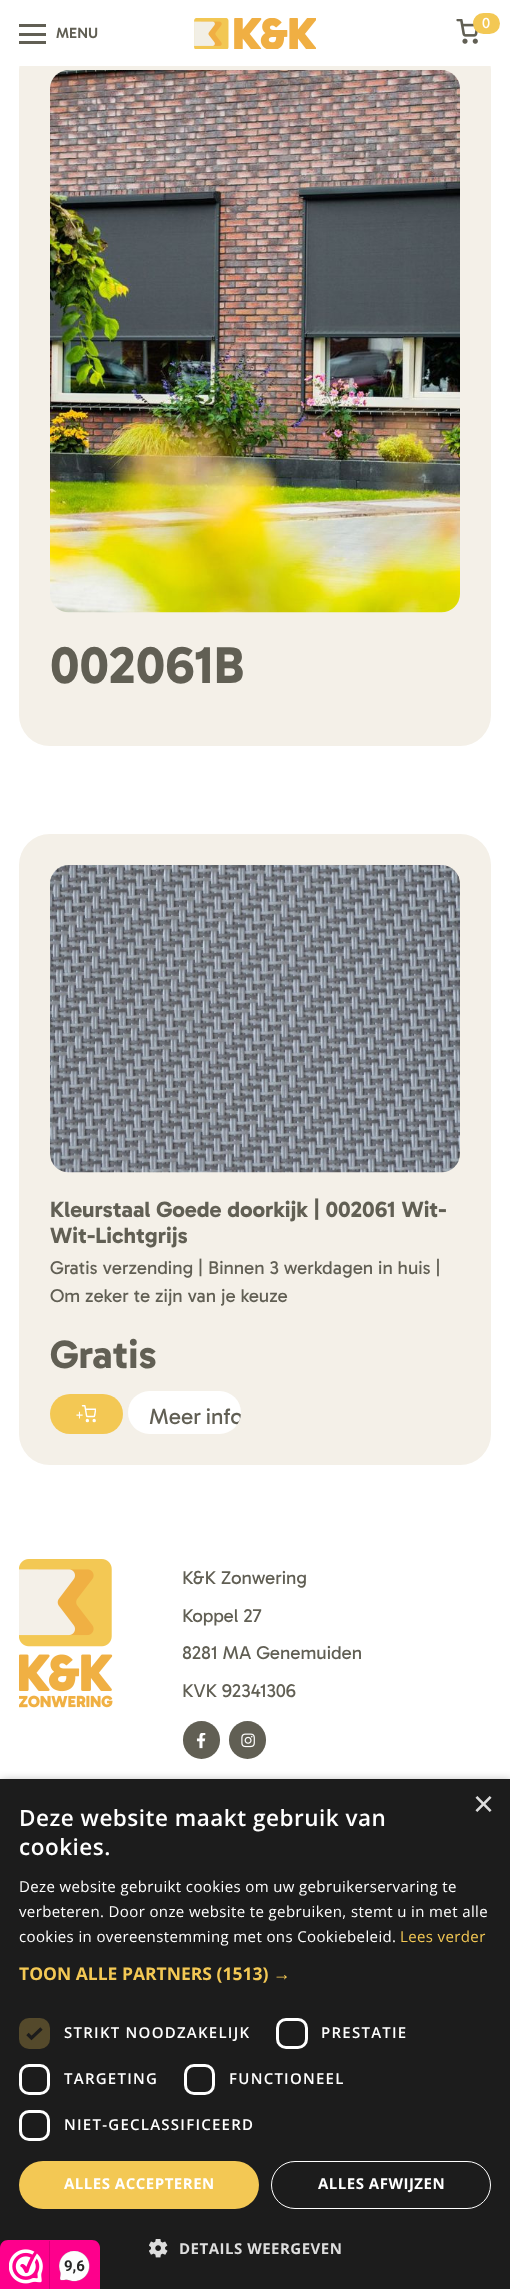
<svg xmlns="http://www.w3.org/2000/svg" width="510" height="2289">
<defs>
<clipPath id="clip1"><rect x="128" y="1391" width="113" height="43" rx="21.5"/></clipPath>
</defs>
<rect width="100%" height="100%" fill="#fff"/>
<rect x="19" y="39" width="472" height="707" rx="31" fill="#f4f0e8"/>
<rect x="19" y="39" width="472" height="27" fill="#fff"/>
<rect x="19" y="24" width="27" height="3" fill="#615f54"/>
<rect x="19" y="33" width="27" height="3" fill="#615f54"/>
<text x="56" y="38" style="font-family:Gabarito;font-size:15px;font-weight:600;fill:#615f54">MENU</text>
<rect x="19" y="41" width="27" height="3" fill="#615f54"/>
<image x="194" y="18" width="122" height="31" href="media/1.png"/>
<image x="456" y="19" width="22" height="25" href="media/2.png"/>
<rect x="473" y="13" width="27" height="21" rx="10.5" fill="#f3c854"/>
<text x="482" y="28" style="font-family:Gabarito;font-size:15px;fill:#fff">0</text>
<image x="50" y="70" width="410" height="543" href="media/3.png"/>
<text x="50" y="683" style="font-family:Gabarito;font-size:52.5px;font-weight:bold;fill:#615f54">002061B</text>
<rect x="19" y="834" width="472" height="631" rx="31" fill="#f4f0e8"/>
<image x="50" y="865" width="410" height="308" href="media/4.png"/>
<text x="50" y="1217" style="font-family:Gabarito;font-size:22.5px;font-weight:bold;fill:#615f54">Kleurstaal Goede doorkijk | 002061 Wit-</text>
<text x="50" y="1243" style="font-family:Gabarito;font-size:22.5px;font-weight:bold;fill:#615f54">Wit-Lichtgrijs</text>
<text x="50" y="1274" style="font-family:Gabarito;font-size:18.75px;fill:#615f54">Gratis verzending | Binnen 3 werkdagen in huis |</text>
<text x="50" y="1302" style="font-family:Gabarito;font-size:18.75px;fill:#615f54">Om zeker te zijn van je keuze</text>
<text x="50" y="1368" style="font-family:Gabarito;font-size:40px;font-weight:bold;fill:#615f54">Gratis</text>
<rect x="50" y="1394" width="73" height="40" rx="20" fill="#f3c854"/>
<image x="76" y="1405" width="20" height="18" href="media/5.png"/>
<rect x="128" y="1391" width="113" height="43" rx="21.5" fill="#fff"/>
<g clip-path="url(#clip1)">
<text x="149" y="1424" word-spacing="-1" style="font-family:Gabarito;font-size:22.5px;fill:#615f54">Meer info</text>
</g>
<image x="19" y="1559" width="94" height="149" href="media/6.png"/>
<text x="182" y="1584" style="font-family:Gabarito;font-size:18.75px;fill:#615f54">K&amp;K Zonwering</text>
<text x="182" y="1622" style="font-family:Gabarito;font-size:18.75px;fill:#615f54">Koppel 27</text>
<text x="182" y="1659" style="font-family:Gabarito;font-size:18.75px;fill:#615f54">8281 MA Genemuiden</text>
<text x="182" y="1697" style="font-family:Gabarito;font-size:18.75px;fill:#615f54">KVK 92341306</text>
<rect x="183" y="1721" width="37" height="38" rx="18.5" fill="#615f54"/>
<image x="196" y="1733" width="10" height="16" href="media/7.png"/>
<rect x="229" y="1721" width="37" height="38" rx="18.5" fill="#615f54"/>
<image x="241" y="1733" width="14" height="15" href="media/8.png"/>
<rect x="1" y="1781" width="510" height="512" fill="#00000059" filter="blur(5px)"/>
<rect y="1779" width="510" height="510" fill="#1c1c1c"/>
<text x="473" y="1816" style="font-family:Liberation Sans;font-size:36px;fill:#ddd">×</text>
<text x="19" y="1826" style="font-family:Open Sans;font-size:22.5px;font-weight:600;letter-spacing:0.5px;fill:#fff">Deze website maakt gebruik van</text>
<text x="19" y="1855" style="font-family:Open Sans;font-size:22.5px;font-weight:600;letter-spacing:0.5px;fill:#fff">cookies.</text>
<text x="19" y="1892" style="font-family:Open Sans;font-size:15px;letter-spacing:0.38px;fill:#fff">Deze website gebruikt cookies om uw gebruikerservaring te</text>
<text x="19" y="1917" style="font-family:Open Sans;font-size:15px;letter-spacing:0.38px;fill:#fff">verbeteren. Door onze website te gebruiken, stemt u in met alle</text>
<text x="19" y="1942" style="font-family:Open Sans;font-size:15px;letter-spacing:0.38px;fill:#fff">cookies in overeenstemming met ons Cookiebeleid.</text>
<text x="400" y="1942" style="font-family:Open Sans;font-size:15px;letter-spacing:0.38px;fill:#f3c854">Lees verder</text>
<text x="19" y="1980" style="font-family:Open Sans;font-size:17.5px;font-weight:bold;fill:#f3c854">TOON ALLE PARTNERS (1513)</text>
<text x="273" y="1980" style="font-family:Liberation Sans;font-size:17.5px;font-weight:bold;fill:#f3c854">→</text>
<rect x="19" y="2018" width="31" height="31" rx="10" fill="#54492b"/>
<path d="M27.5 2034l4 4l10-9.5" fill="none" stroke="#1c1c1c" stroke-width="3.3"/>
<text x="64" y="2038" style="font-family:Open Sans;font-size:15px;font-weight:600;letter-spacing:1.25px;fill:#fff">STRIKT NOODZAKELIJK</text>
<rect x="277.5" y="2019.5" width="29" height="28" rx="8.5" fill="none" stroke="#fff" stroke-width="3"/>
<text x="321" y="2038" style="font-family:Open Sans;font-size:15px;font-weight:600;letter-spacing:1.25px;fill:#fff">PRESTATIE</text>
<rect x="20.5" y="2065.5" width="28" height="28" rx="8.5" fill="none" stroke="#fff" stroke-width="3"/>
<text x="64" y="2084" style="font-family:Open Sans;font-size:15px;font-weight:600;letter-spacing:1.25px;fill:#fff">TARGETING</text>
<rect x="185.5" y="2065.5" width="28" height="28" rx="8.5" fill="none" stroke="#fff" stroke-width="3"/>
<text x="229" y="2084" style="font-family:Open Sans;font-size:15px;font-weight:600;letter-spacing:1.25px;fill:#fff">FUNCTIONEEL</text>
<rect x="20.5" y="2111.5" width="28" height="28" rx="8.5" fill="none" stroke="#fff" stroke-width="3"/>
<text x="64" y="2130" style="font-family:Open Sans;font-size:15px;font-weight:600;letter-spacing:1.25px;fill:#fff">NIET-GECLASSIFICEERD</text>
<rect x="19" y="2161" width="240" height="48" rx="24" fill="#f3c854"/>
<text x="64" y="2189" style="font-family:Open Sans;font-size:15px;font-weight:bold;letter-spacing:0.5px;fill:#fff">ALLES ACCEPTEREN</text>
<rect x="271.5" y="2161.5" width="219" height="47" rx="23.5" fill="none" stroke="#fff"/>
<text x="318" y="2189" style="font-family:Open Sans;font-size:15px;font-weight:bold;letter-spacing:0.5px;fill:#fff">ALLES AFWIJZEN</text>
<image x="149" y="2239" width="19" height="19" href="media/9.png"/>
<text x="179" y="2254" style="font-family:Open Sans;font-size:15px;font-weight:bold;letter-spacing:0.5px;fill:#ddd">DETAILS WEERGEVEN</text>
<path d="M8 2240h84c4.5 0 8 3.5 8 8v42h-100v-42c0-4.5 3.5-8 8-8z" fill="#fe008c"/>
<image x="9" y="2249" width="34" height="35" href="media/10.png"/>
<rect x="49" y="2241" width="1" height="48" fill="#d80077"/>
<image x="59" y="2251" width="31" height="31" href="media/11.png"/>
<text x="64" y="2271" style="font-family:Roboto;font-size:15px;font-weight:bold;fill:#272626">9,6</text>
</svg>
